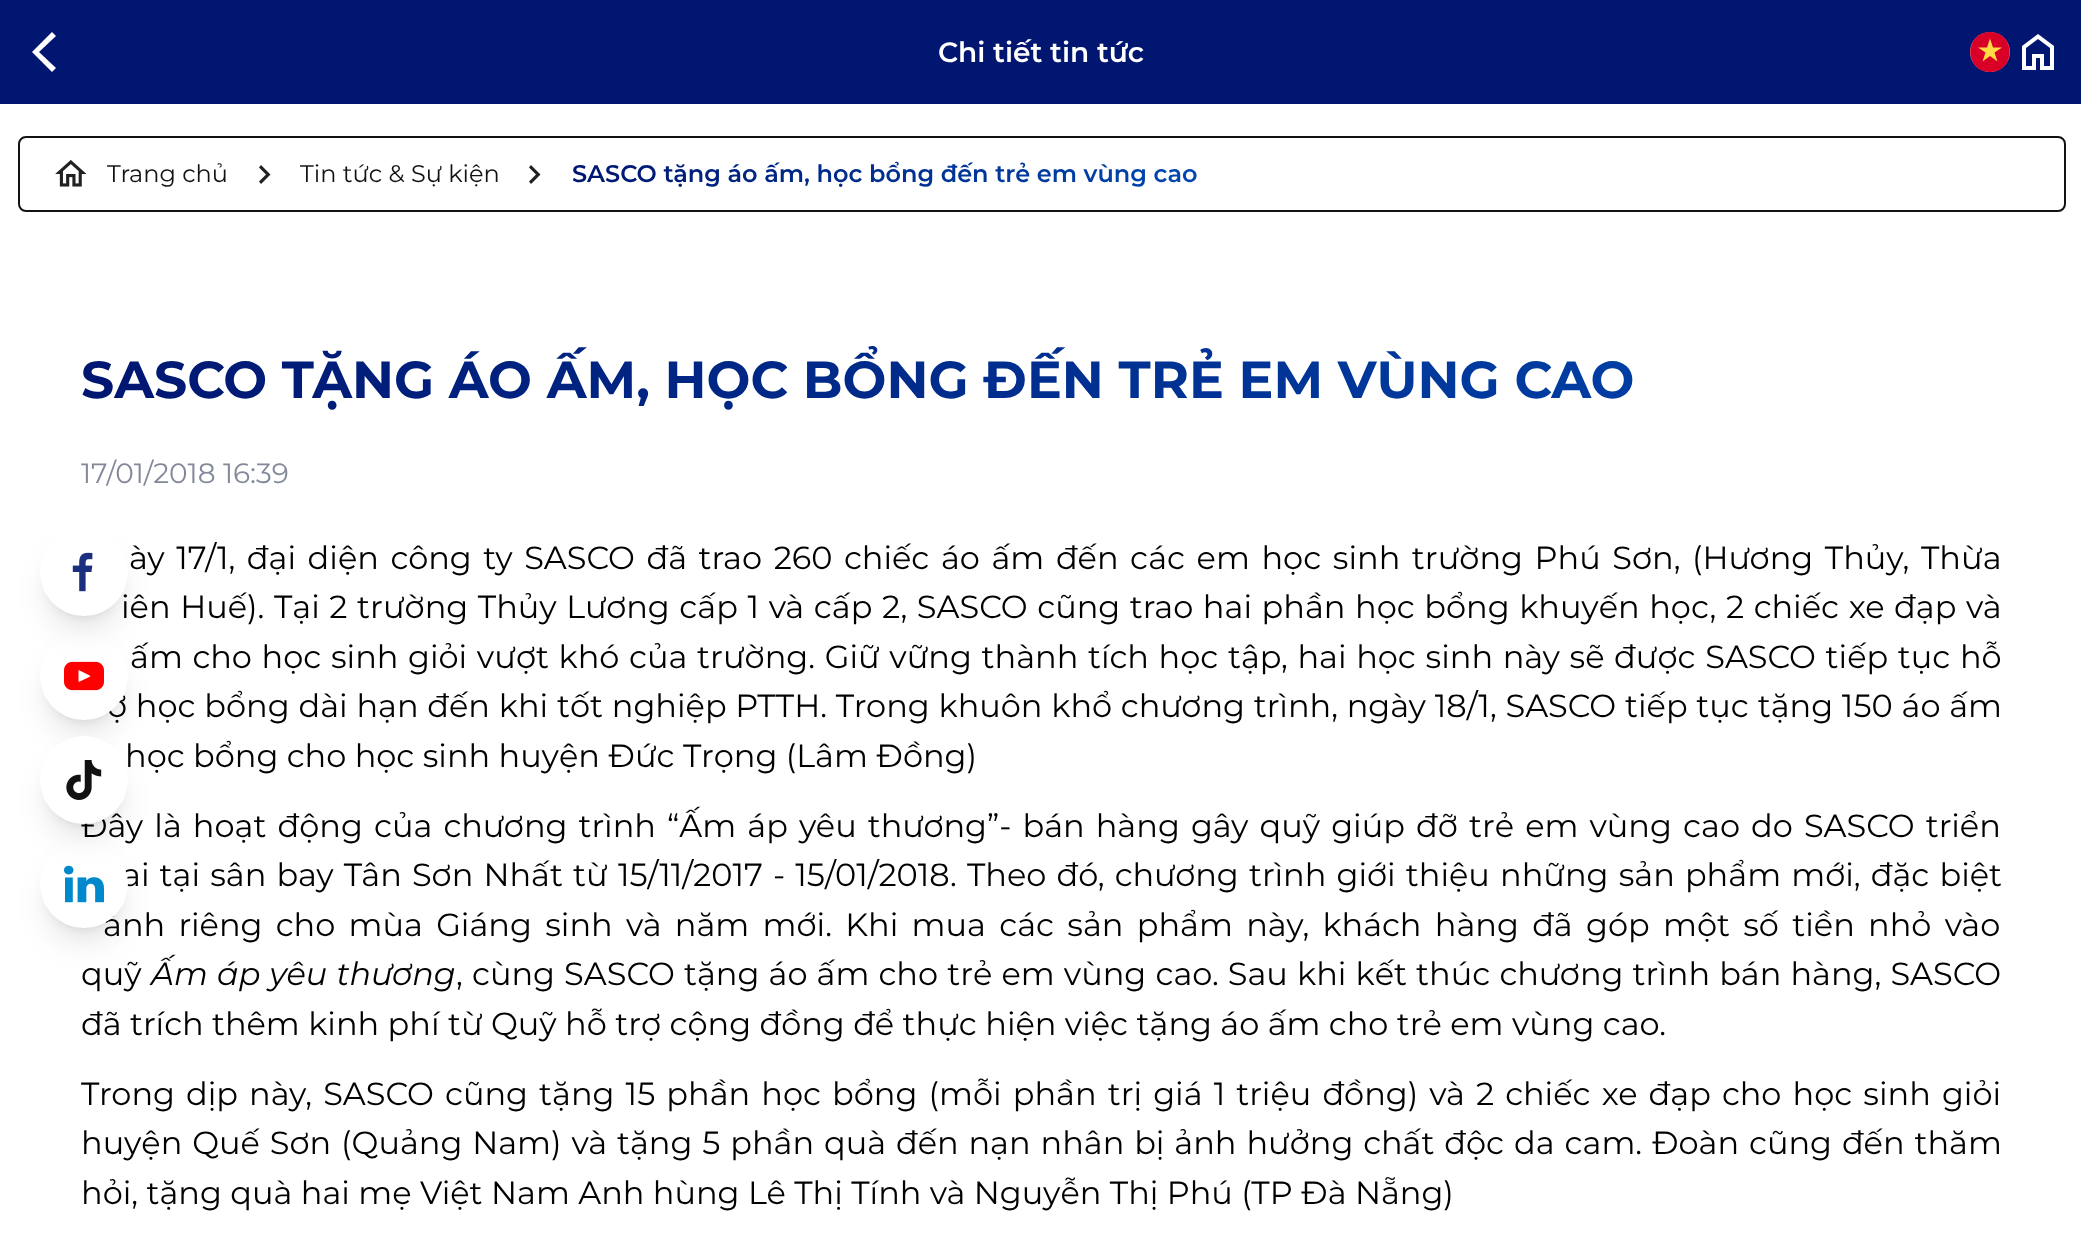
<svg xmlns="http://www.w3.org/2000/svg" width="2081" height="1248">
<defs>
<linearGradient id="g1" gradientUnits="userSpaceOnUse" x1="1156" y1="60" x2="613" y2="288"><stop offset="0.01" stop-color="#0047af"/><stop offset="0.99" stop-color="#001670"/></linearGradient>
<linearGradient id="g2" gradientUnits="userSpaceOnUse" x1="1900" y1="21" x2="182" y2="739"><stop offset="0.01" stop-color="#0047af"/><stop offset="0.99" stop-color="#001670"/></linearGradient>
</defs>
<rect width="100%" height="100%" fill="#fff"/>
<rect width="2081" height="104" fill="#001670"/>
<path d="M52 72l-20-20l20-20l4 4l-17 16l17 16z" fill="#fff"/>
<text x="938" y="62" style="font-family:Montserrat;font-size:28px;font-weight:600;fill:#fff">Chi tiết tin tức</text>
<circle cx="1990" cy="52" r="20" fill="#f87171"/>
<path d="M1990 32c-26 0-26 40 0 40c26 0 26-40 0-40z" fill="#d80027"/>
<path d="M1990 38.5l3 9h9l-7.5 5l3 9l-7.5-5.5l-7.5 5.5l3-9l-7.5-5h9z" fill="#ffda44"/>
<image x="2022" y="34" width="32" height="36" href="media/1.png"/>
<rect x="19" y="137" width="2046" height="74" rx="7" fill="none" stroke="#121212" stroke-width="2"/>
<image x="55" y="160" width="32" height="27" href="media/2.png"/>
<text x="107" y="182" style="font-family:Montserrat;font-size:24px;fill:#121212">Trang chủ</text>
<path d="M259 181.5l7-7l-7-7l2-2.5l9.5 9.5l-9.5 9.5z" fill="#212121"/>
<text x="300" y="182" style="font-family:Montserrat;font-size:24px;fill:#121212">Tin tức &amp; Sự kiện</text>
<path d="M529 181.5l7-7l-7-7l2-2.5l9.5 9.5l-9.5 9.5z" fill="#212121"/>
<text x="572" y="182" style="font-family:Montserrat;font-size:24px;font-weight:600;fill:url(#g1)">SASCO tặng áo ấm, học bổng đến trẻ em vùng cao</text>
<text x="81" y="398" style="font-family:Montserrat;font-size:52px;font-weight:bold;fill:url(#g2)">SASCO TẶNG ÁO ẤM, HỌC BỔNG ĐẾN TRẺ EM VÙNG CAO</text>
<text x="81" y="483" style="font-family:Montserrat;font-size:28px;fill:#83899b">17/01/2018 16:39</text>
<text x="129" y="569" word-spacing="3.2" style="font-family:Montserrat;font-size:32px;fill:#000">ày 17/1, đại diện công ty SASCO đã trao 260 chiếc áo ấm đến các em học sinh trường Phú Sơn, (Hương Thủy, Thừa</text>
<text x="121" y="618" word-spacing="1.2" style="font-family:Montserrat;font-size:32px;fill:#000">iên Huế). Tại 2 trường Thủy Lương cấp 1 và cấp 2, SASCO cũng trao hai phần học bổng khuyến học, 2 chiếc xe đạp và</text>
<text x="130" y="668" word-spacing="1.25" style="font-family:Montserrat;font-size:32px;fill:#000">ấm cho học sinh giỏi vượt khó của trường. Giữ vững thành tích học tập, hai học sinh này sẽ được SASCO tiếp tục hỗ</text>
<text x="107" y="717" word-spacing="0.4" style="font-family:Montserrat;font-size:32px;fill:#000">ợ học bổng dài hạn đến khi tốt nghiệp PTTH. Trong khuôn khổ chương trình, ngày 18/1, SASCO tiếp tục tặng 150 áo ấm</text>
<text x="125" y="767" style="font-family:Montserrat;font-size:32px;fill:#000">học bổng cho học sinh huyện Đức Trọng (Lâm Đồng)</text>
<text x="81" y="837" word-spacing="2.7" style="font-family:Montserrat;font-size:32px;fill:#000">Đây là hoạt động của chương trình “Ấm áp yêu thương”- bán hàng gây quỹ giúp đỡ trẻ em vùng cao do SASCO triển</text>
<text x="122" y="886" word-spacing="1.75" style="font-family:Montserrat;font-size:32px;fill:#000">ai tại sân bay Tân Sơn Nhất từ 15/11/2017 - 15/01/2018. Theo đó, chương trình giới thiệu những sản phẩm mới, đặc biệt</text>
<text x="103" y="936" word-spacing="4.9" style="font-family:Montserrat;font-size:32px;fill:#000">ành riêng cho mùa Giáng sinh và năm mới. Khi mua các sản phẩm này, khách hàng đã góp một số tiền nhỏ vào</text>
<text x="81" y="985" style="font-family:Montserrat;font-size:32px;fill:#000">quỹ</text>
<text x="151" y="985" word-spacing="0.75" style="font-family:Montserrat;font-size:32px;font-style:italic;fill:#000">Ấm áp yêu thương</text>
<text x="456" y="985" word-spacing="0.75" style="font-family:Montserrat;font-size:32px;fill:#000">, cùng SASCO tặng áo ấm cho trẻ em vùng cao. Sau khi kết thúc chương trình bán hàng, SASCO</text>
<text x="81" y="1035" style="font-family:Montserrat;font-size:32px;fill:#000">đã trích thêm kinh phí từ Quỹ hỗ trợ cộng đồng để thực hiện việc tặng áo ấm cho trẻ em vùng cao.</text>
<text x="81" y="1105" word-spacing="2.7" style="font-family:Montserrat;font-size:32px;fill:#000">Trong dịp này, SASCO cũng tặng 15 phần học bổng (mỗi phần trị giá 1 triệu đồng) và 2 chiếc xe đạp cho học sinh giỏi</text>
<text x="81" y="1154" word-spacing="1.5" style="font-family:Montserrat;font-size:32px;fill:#000">huyện Quế Sơn (Quảng Nam) và tặng 5 phần quà đến nạn nhân bị ảnh hưởng chất độc da cam. Đoàn cũng đến thăm</text>
<text x="81" y="1204" style="font-family:Montserrat;font-size:32px;fill:#000">hỏi, tặng quà hai mẹ Việt Nam Anh hùng Lê Thị Tính và Nguyễn Thị Phú (TP Đà Nẵng)</text>
<rect x="48" y="648" width="72" height="72" rx="36" fill="#0000001a" filter="blur(6px)"/>
<rect x="46" y="658" width="76" height="76" rx="38" fill="#0000001a" filter="blur(15px)"/>
<circle cx="84" cy="676" r="44" fill="#fff"/>
<rect x="48" y="544" width="72" height="72" rx="36" fill="#0000001a" filter="blur(6px)"/>
<image x="64" y="661" width="40" height="30" href="media/4.png"/>
<rect x="46" y="554" width="76" height="76" rx="38" fill="#0000001a" filter="blur(15px)"/>
<circle cx="84" cy="572" r="44" fill="#fff"/>
<image x="72" y="552" width="21" height="40" href="media/3.png"/>
<rect x="48" y="856" width="72" height="72" rx="36" fill="#0000001a" filter="blur(6px)"/>
<rect x="46" y="866" width="76" height="76" rx="38" fill="#0000001a" filter="blur(15px)"/>
<circle cx="84" cy="884" r="44" fill="#fff"/>
<rect x="48" y="752" width="72" height="72" rx="36" fill="#0000001a" filter="blur(6px)"/>
<image x="64" y="865" width="40" height="38" href="media/6.png"/>
<rect x="46" y="762" width="76" height="76" rx="38" fill="#0000001a" filter="blur(15px)"/>
<circle cx="84" cy="780" r="44" fill="#fff"/>
<image x="66" y="760" width="36" height="40" href="media/5.png"/>
</svg>
